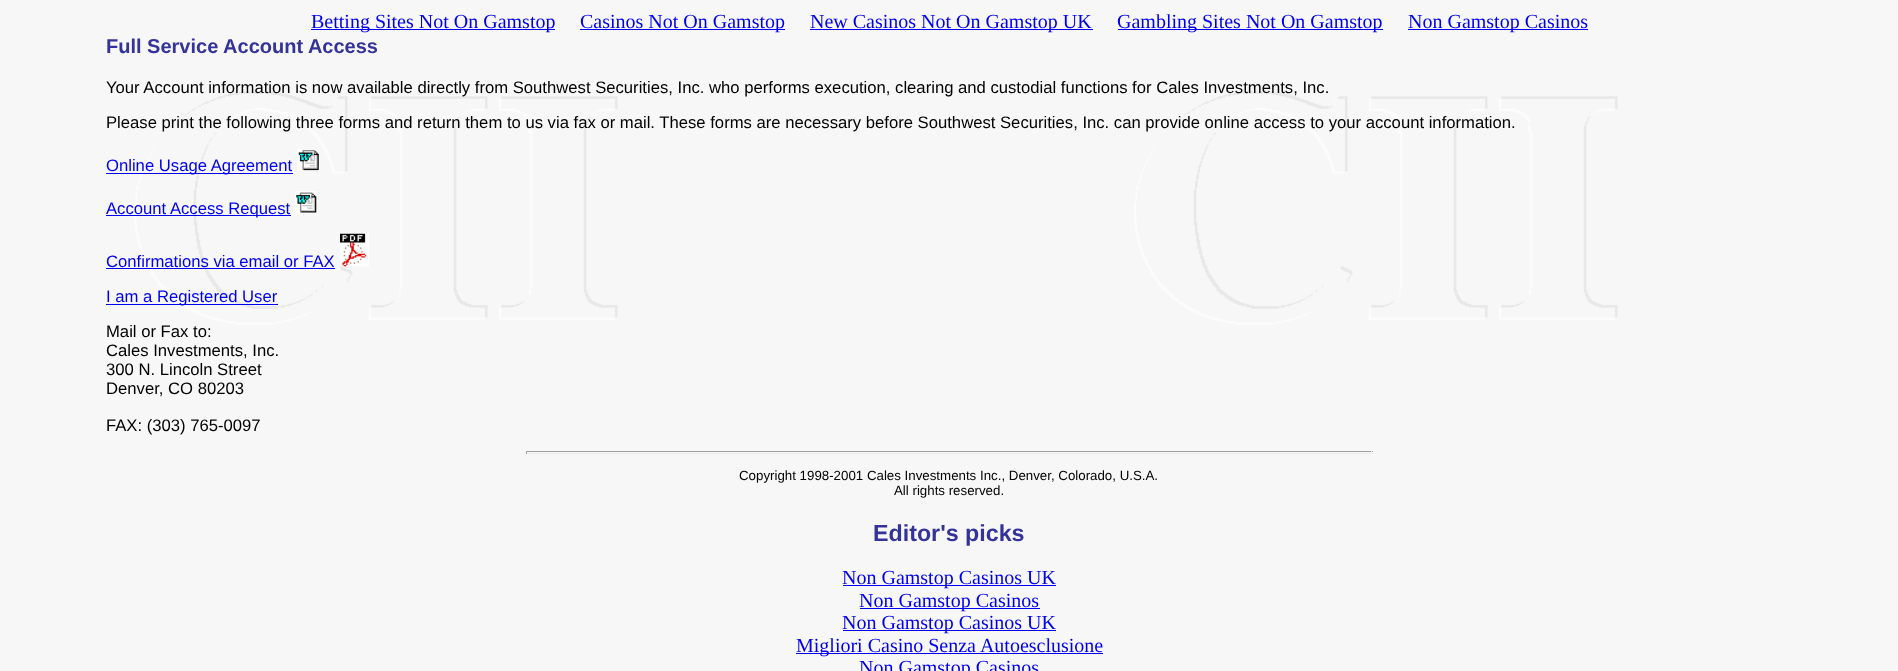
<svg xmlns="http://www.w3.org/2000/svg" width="1898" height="671">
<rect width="100%" height="100%" fill="#fff"/>
<image x="0" y="0" width="1898" height="671" href="media/1.png"/>
<rect x="311" y="29" width="244" height="1" fill="#00e"/>
<text x="311" y="28" style="font-family:Liberation Serif;font-size:20px;fill:#00e">Betting Sites Not On Gamstop</text>
<rect x="580" y="29" width="205" height="1" fill="#00e"/>
<text x="580" y="28" style="font-family:Liberation Serif;font-size:20px;fill:#00e">Casinos Not On Gamstop</text>
<rect x="810" y="29" width="283" height="1" fill="#00e"/>
<text x="810" y="28" style="font-family:Liberation Serif;font-size:20px;fill:#00e">New Casinos Not On Gamstop UK</text>
<rect x="1118" y="29" width="265" height="1" fill="#00e"/>
<text x="1117" y="28" style="font-family:Liberation Serif;font-size:20px;fill:#00e">Gambling Sites Not On Gamstop</text>
<rect x="1408" y="29" width="180" height="1" fill="#00e"/>
<text x="1408" y="28" style="font-family:Liberation Serif;font-size:20px;fill:#00e">Non Gamstop Casinos</text>
<text x="106" y="53" style="font-family:Liberation Sans;font-size:20px;font-weight:bold;fill:#339">Full Service Account Access</text>
<text x="106" y="93" style="font-family:Liberation Sans;font-size:16.67px;fill:#000">Your Account information is now available directly from Southwest Securities, Inc. who performs execution, clearing and custodial functions for Cales Investments, Inc.</text>
<text x="106" y="128" style="font-family:Liberation Sans;font-size:16.67px;fill:#000">Please print the following three forms and return them to us via fax or mail. These forms are necessary before Southwest Securities, Inc. can provide online access to your account information.</text>
<rect x="106" y="173" width="187" height="1" fill="#00e"/>
<text x="106" y="171" style="font-family:Liberation Sans;font-size:16.67px;fill:#00e">Online Usage Agreement</text>
<image x="297" y="149" width="23" height="22" href="media/2.png"/>
<rect x="106" y="215" width="185" height="1" fill="#00e"/>
<text x="106" y="214" style="font-family:Liberation Sans;font-size:16.67px;fill:#00e">Account Access Request</text>
<image x="295" y="191" width="23" height="23" href="media/3.png"/>
<text x="106" y="267" style="font-family:Liberation Sans;font-size:16.67px;fill:#00e">Confirmations via email or FAX</text>
<rect x="106" y="268" width="229" height="1" fill="#00e"/>
<image x="340" y="233" width="29" height="34" href="media/4.png"/>
<rect x="106" y="304" width="172" height="1" fill="#00e"/>
<text x="106" y="302" style="font-family:Liberation Sans;font-size:16.67px;fill:#00e">I am a Registered User</text>
<text x="106" y="337" style="font-family:Liberation Sans;font-size:16.67px;fill:#000">Mail or Fax to:</text>
<text x="106" y="356" style="font-family:Liberation Sans;font-size:16.67px;fill:#000">Cales Investments, Inc.</text>
<text x="106" y="375" style="font-family:Liberation Sans;font-size:16.67px;fill:#000">300 N. Lincoln Street</text>
<text x="106" y="394" style="font-family:Liberation Sans;font-size:16.67px;fill:#000">Denver, CO 80203</text>
<text x="106" y="431" style="font-family:Liberation Sans;font-size:16.67px;fill:#000">FAX: (303) 765-0097</text>
<rect x="526" y="451" width="847" height="1" fill="#9f9f9f"/>
<rect x="1371" y="451" width="1" height="3" fill="#eee"/>
<rect x="526" y="453" width="847" height="1" fill="#eee"/>
<rect x="526" y="451" width="1" height="3" fill="#9f9f9f"/>
<text x="739" y="480" style="font-family:Liberation Sans;font-size:13.3px;fill:#000">Copyright 1998-2001 Cales Investments Inc., Denver, Colorado, U.S.A.</text>
<text x="894" y="495" style="font-family:Liberation Sans;font-size:13.3px;fill:#000">All rights reserved.</text>
<text x="873" y="541" style="font-family:Liberation Sans;font-size:23.25px;font-weight:bold;fill:#339">Editor's picks</text>
<rect x="843" y="585" width="213" height="1" fill="#00e"/>
<text x="842" y="584" style="font-family:Liberation Serif;font-size:20px;fill:#00e">Non Gamstop Casinos UK</text>
<rect x="860" y="608" width="180" height="1" fill="#00e"/>
<text x="859" y="607" style="font-family:Liberation Serif;font-size:20px;fill:#00e">Non Gamstop Casinos</text>
<rect x="843" y="630" width="213" height="1" fill="#00e"/>
<text x="842" y="629" style="font-family:Liberation Serif;font-size:20px;fill:#00e">Non Gamstop Casinos UK</text>
<rect x="796" y="653" width="307" height="1" fill="#00e"/>
<text x="796" y="652" style="font-family:Liberation Serif;font-size:20px;fill:#00e">Migliori Casino Senza Autoesclusione</text>
<text x="859" y="674" style="font-family:Liberation Serif;font-size:20px;fill:#00e">Non Gamstop Casinos</text>
</svg>
